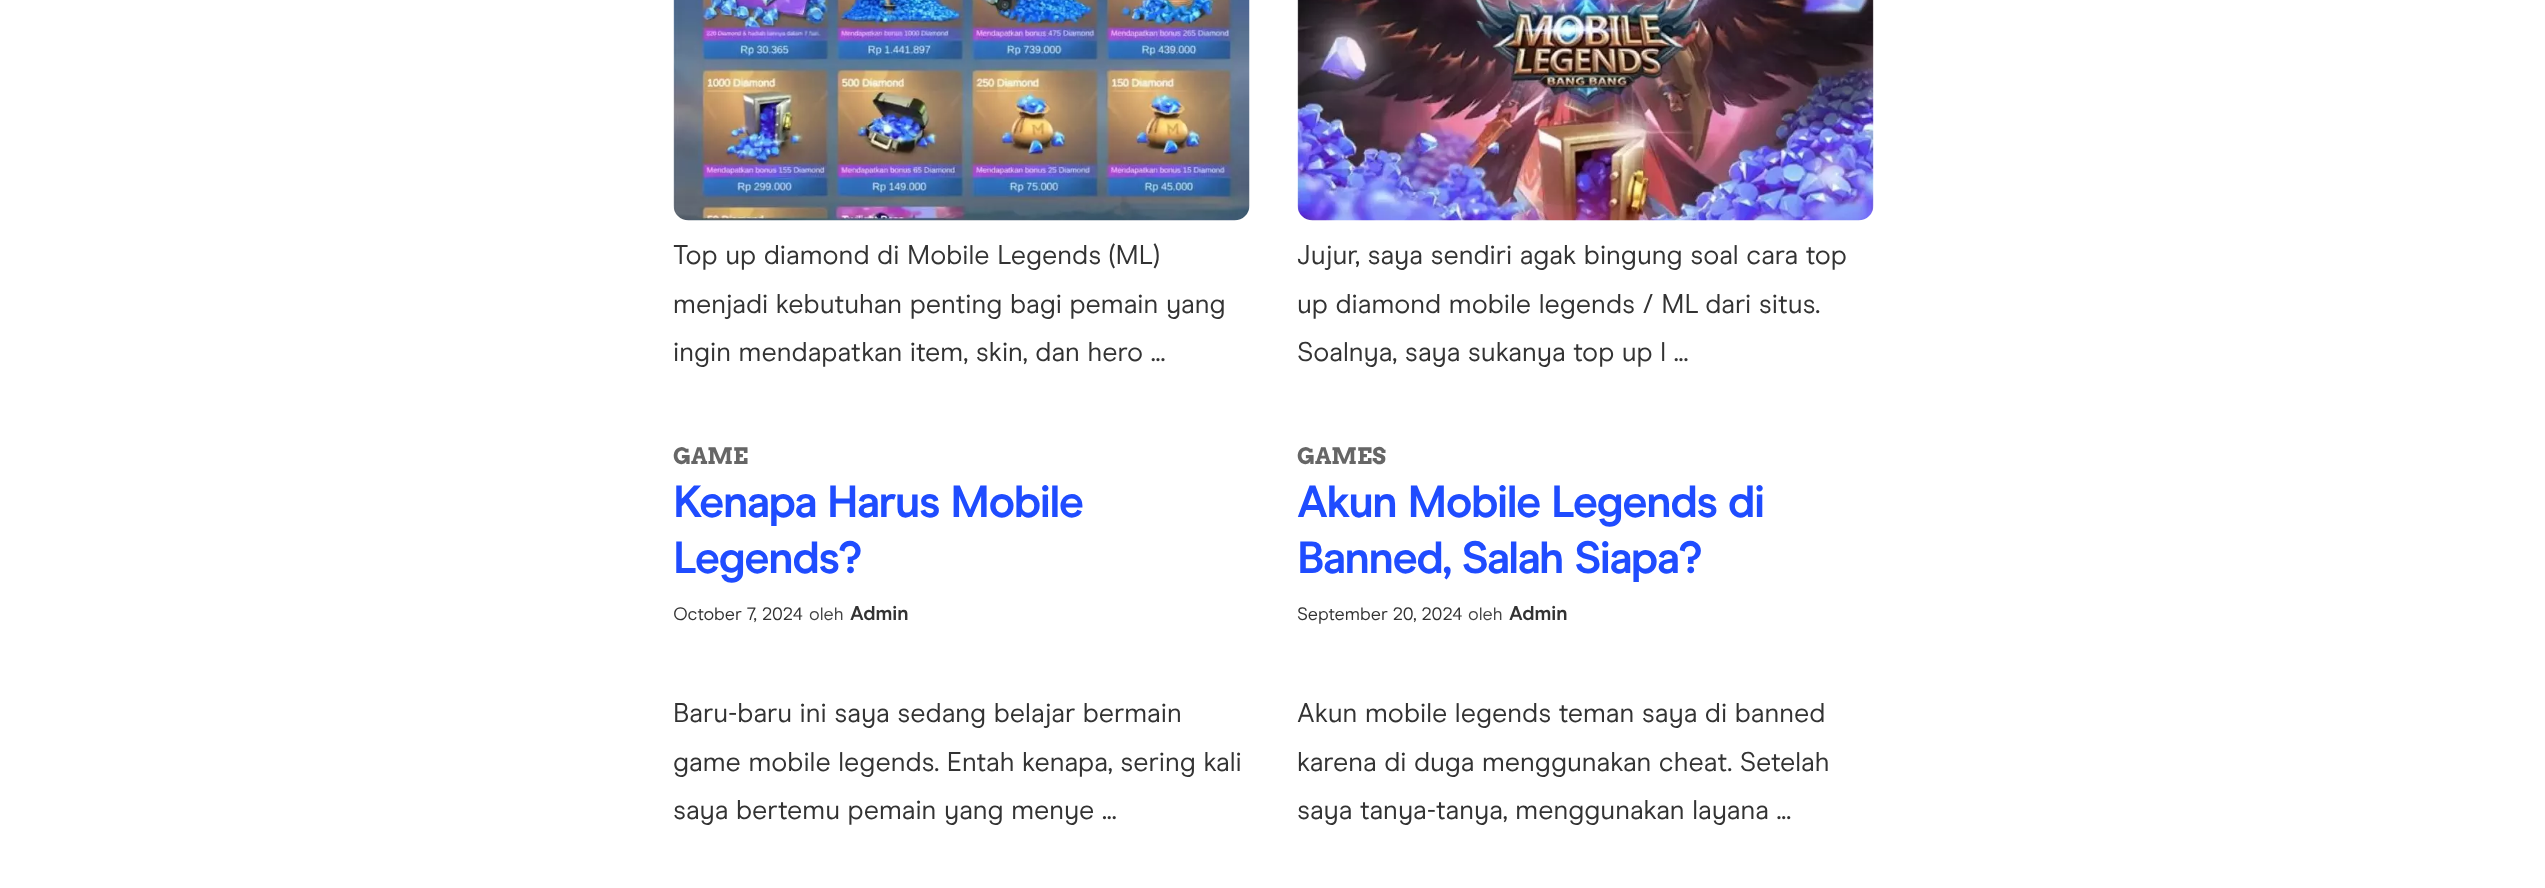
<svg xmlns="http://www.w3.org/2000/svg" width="2545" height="888">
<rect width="100%" height="100%" fill="#fff"/>
<image x="673" y="0" width="577" height="221" href="media/1.png"/>
<text x="673" y="264" style="font-family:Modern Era;font-size:27px;fill:#333">Top up diamond di Mobile Legends (ML)</text>
<text x="673" y="313" style="font-family:Modern Era;font-size:27px;fill:#333">menjadi kebutuhan penting bagi pemain yang</text>
<text x="673" y="361" style="font-family:Modern Era;font-size:27px;fill:#333">ingin mendapatkan item, skin, dan hero ...</text>
<image x="1297" y="0" width="577" height="221" href="media/2.png"/>
<text x="1297" y="264" style="font-family:Modern Era;font-size:27px;fill:#333">Jujur, saya sendiri agak bingung soal cara top</text>
<text x="1297" y="313" style="font-family:Modern Era;font-size:27px;fill:#333">up diamond mobile legends / ML dari situs.</text>
<text x="1297" y="361" style="font-family:Modern Era;font-size:27px;fill:#333">Soalnya, saya sukanya top up l ...</text>
<text x="673" y="464" style="font-family:Arvo;font-size:22.5px;font-weight:bold;fill:#666">GAME</text>
<text x="673" y="517" style="font-family:Modern Era;font-size:45px;font-weight:bold;letter-spacing:-1.5px;fill:#1f4cff">Kenapa Harus Mobile</text>
<text x="673" y="573" style="font-family:Modern Era;font-size:45px;font-weight:bold;letter-spacing:-1.5px;fill:#1f4cff">Legends?</text>
<text x="673" y="620" style="font-family:Modern Era;font-size:18px;fill:#333">October 7, 2024</text>
<text x="809" y="620" style="font-family:Modern Era;font-size:18px;fill:#444">oleh</text>
<text x="850" y="620" style="font-family:Modern Era;font-size:20px;font-weight:bold;fill:#333">Admin</text>
<text x="673" y="722" style="font-family:Modern Era;font-size:27px;fill:#333">Baru-baru ini saya sedang belajar bermain</text>
<text x="673" y="771" style="font-family:Modern Era;font-size:27px;fill:#333">game mobile legends. Entah kenapa, sering kali</text>
<text x="673" y="819" style="font-family:Modern Era;font-size:27px;fill:#333">saya bertemu pemain yang menye ...</text>
<text x="1297" y="464" style="font-family:Arvo;font-size:22.5px;font-weight:bold;fill:#666">GAMES</text>
<text x="1297" y="517" style="font-family:Modern Era;font-size:45px;font-weight:bold;letter-spacing:-1.5px;fill:#1f4cff">Akun Mobile Legends di</text>
<text x="1297" y="573" style="font-family:Modern Era;font-size:45px;font-weight:bold;letter-spacing:-1.5px;fill:#1f4cff">Banned, Salah Siapa?</text>
<text x="1297" y="620" style="font-family:Modern Era;font-size:18px;fill:#333">September 20, 2024</text>
<text x="1468" y="620" style="font-family:Modern Era;font-size:18px;fill:#444">oleh</text>
<text x="1509" y="620" style="font-family:Modern Era;font-size:20px;font-weight:bold;fill:#333">Admin</text>
<text x="1297" y="722" style="font-family:Modern Era;font-size:27px;fill:#333">Akun mobile legends teman saya di banned</text>
<text x="1297" y="771" style="font-family:Modern Era;font-size:27px;fill:#333">karena di duga menggunakan cheat. Setelah</text>
<text x="1297" y="819" style="font-family:Modern Era;font-size:27px;fill:#333">saya tanya-tanya, menggunakan layana ...</text>
</svg>
